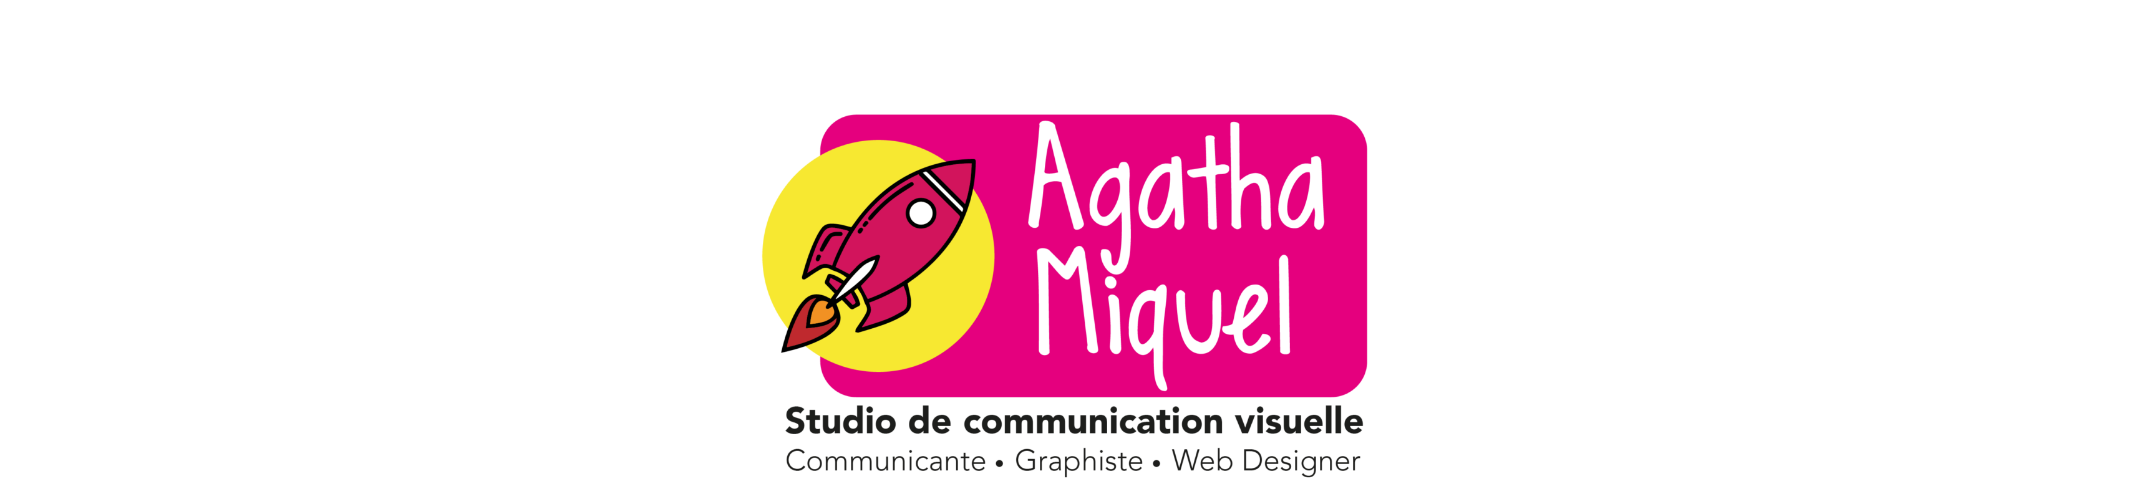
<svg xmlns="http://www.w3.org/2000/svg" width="2133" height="479">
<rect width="100%" height="100%" fill="#fff"/>
<image x="761" y="114" width="607" height="364" href="media/1.png"/>
</svg>
